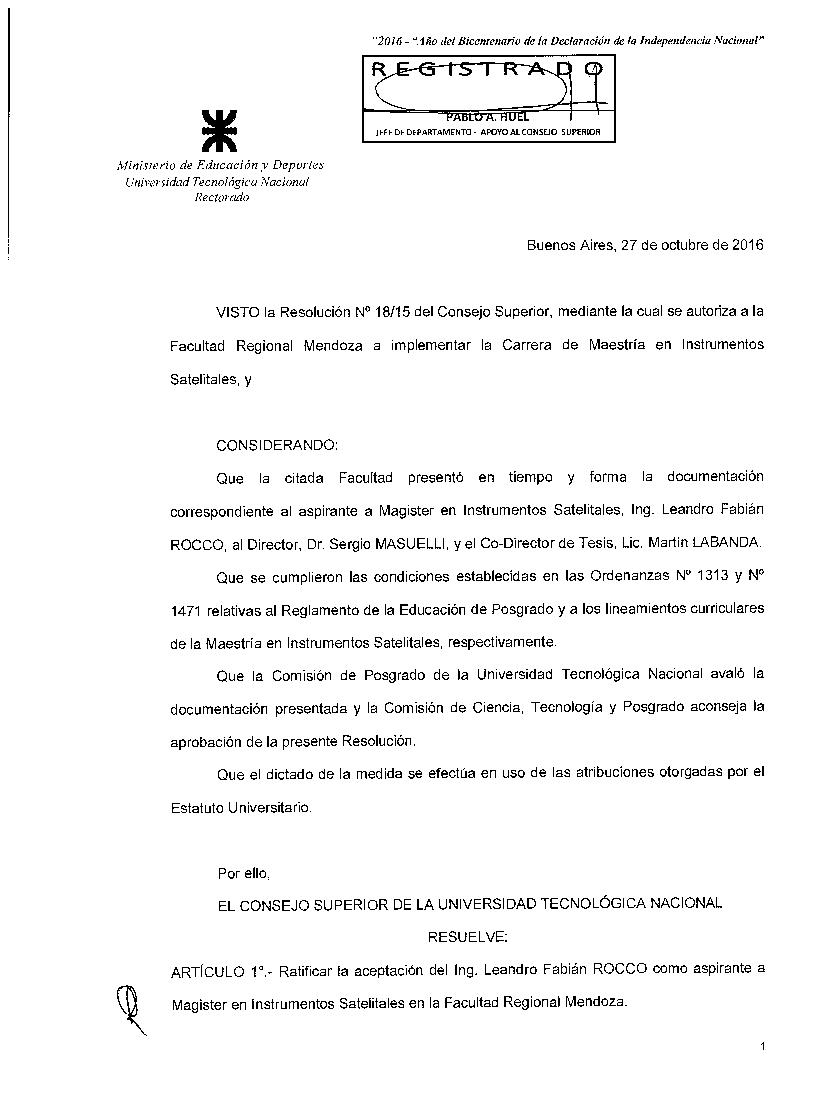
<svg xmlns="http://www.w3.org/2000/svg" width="820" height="1115">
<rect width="100%" height="100%" fill="#fff"/>
<image x="8" y="8" width="760" height="1048" href="media/1.png"/>
</svg>
